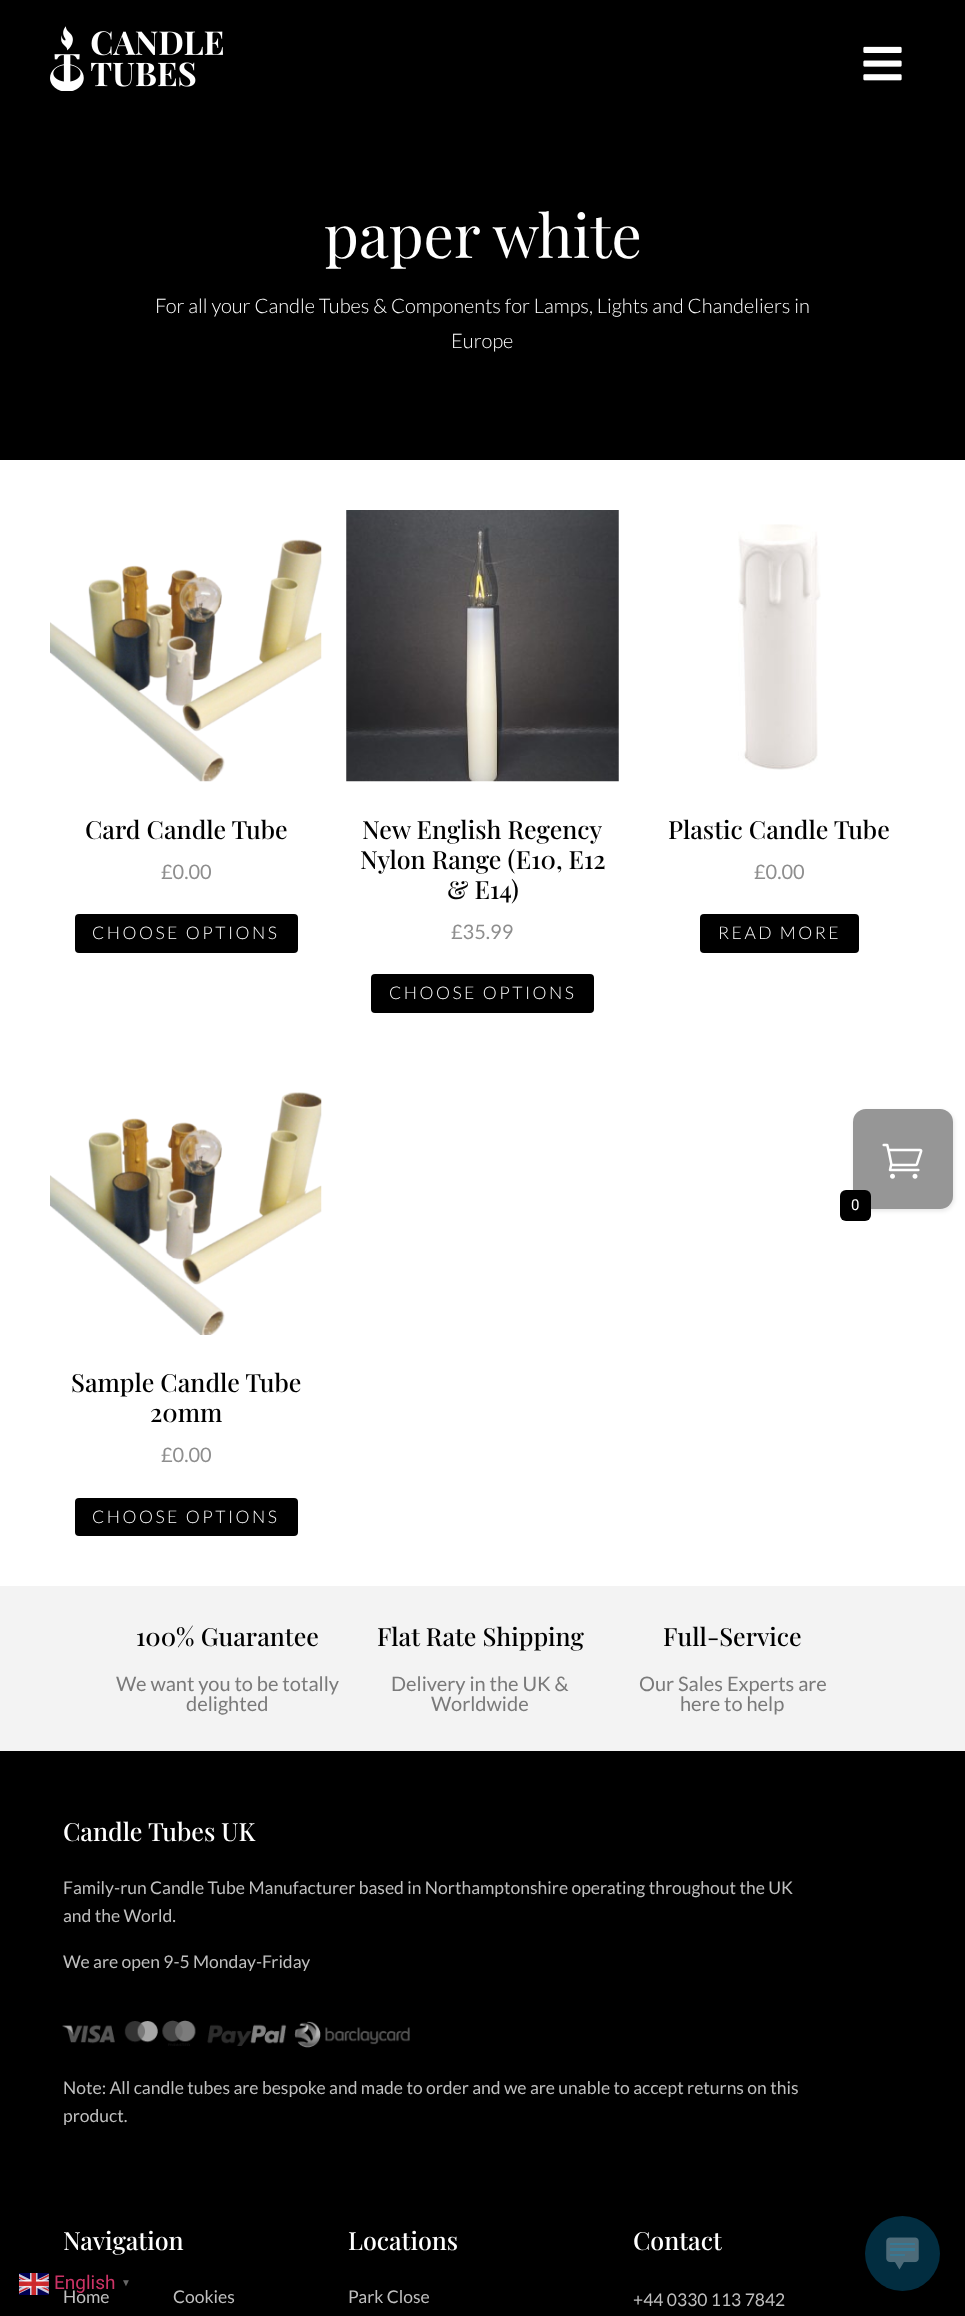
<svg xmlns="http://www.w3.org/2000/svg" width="965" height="2316">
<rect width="100%" height="100%" fill="#fff"/>
<rect width="965" height="460" fill="#000"/>
<image x="50" y="26" width="173" height="65" href="media/1.png"/>
<image x="863" y="46" width="39" height="35" href="media/2.png"/>
<text x="324" y="258" style="font-family:Playfair Display;font-size:60px;fill:#fff">paper white</text>
<text x="155" y="313" style="font-family:Lato;font-size:20px;font-weight:300;fill:#fff">For all your Candle Tubes &amp; Components for Lamps, Lights and Chandeliers in</text>
<text x="451" y="348" style="font-family:Lato;font-size:20px;font-weight:300;fill:#fff">Europe</text>
<image x="50" y="539" width="272" height="243" href="media/3.png"/>
<text x="85" y="839" style="font-family:Playfair Display;font-size:25px;font-weight:500;fill:#000">Card Candle Tube</text>
<text x="161" y="879" style="font-family:Lato;font-size:20px;fill:#8e8e8e">£0.00</text>
<rect x="75" y="914" width="223" height="39" rx="4" fill="#000"/>
<text x="92" y="939" style="font-family:Lato;font-size:17.5px;font-weight:300;letter-spacing:2.5px;fill:#fff">CHOOSE OPTIONS</text>
<image x="346" y="510" width="273" height="272" href="media/4.png"/>
<text x="362" y="839" style="font-family:Playfair Display;font-size:25px;font-weight:500;fill:#000">New English Regency</text>
<text x="360" y="869" style="font-family:Playfair Display;font-size:25px;font-weight:500;fill:#000">Nylon Range (E10, E12</text>
<text x="447" y="899" style="font-family:Playfair Display;font-size:25px;font-weight:500;fill:#000">&amp; E14)</text>
<text x="451" y="939" style="font-family:Lato;font-size:20px;fill:#8e8e8e">£35.99</text>
<rect x="371" y="974" width="223" height="39" rx="4" fill="#000"/>
<text x="389" y="999" style="font-family:Lato;font-size:17.5px;font-weight:300;letter-spacing:2.5px;fill:#fff">CHOOSE OPTIONS</text>
<image x="738" y="524" width="83" height="246" href="media/5.png"/>
<text x="668" y="839" style="font-family:Playfair Display;font-size:25px;font-weight:500;fill:#000">Plastic Candle Tube</text>
<text x="754" y="879" style="font-family:Lato;font-size:20px;fill:#8e8e8e">£0.00</text>
<rect x="700" y="914" width="159" height="39" rx="4" fill="#000"/>
<text x="718" y="939" style="font-family:Lato;font-size:17.5px;font-weight:300;letter-spacing:2.5px;fill:#fff">READ MORE</text>
<image x="50" y="1092" width="272" height="243" href="media/6.png"/>
<text x="71" y="1392" style="font-family:Playfair Display;font-size:25px;font-weight:500;fill:#000">Sample Candle Tube</text>
<text x="150" y="1422" style="font-family:Playfair Display;font-size:25px;font-weight:500;fill:#000">20mm</text>
<text x="161" y="1462" style="font-family:Lato;font-size:20px;fill:#8e8e8e">£0.00</text>
<rect x="75" y="1498" width="223" height="38" rx="4" fill="#000"/>
<text x="92" y="1523" style="font-family:Lato;font-size:17.5px;font-weight:300;letter-spacing:2.5px;fill:#fff">CHOOSE OPTIONS</text>
<rect x="854" y="1111" width="100" height="100" rx="13" fill="#0000001a" filter="blur(2px)"/>
<rect x="853" y="1109" width="100" height="100" rx="13" fill="#969696"/>
<image x="882" y="1143" width="41" height="36" href="media/7.png"/>
<rect x="840" y="1190" width="31" height="31" rx="6" fill="#000"/>
<text x="851" y="1210" style="font-family:Roboto;font-size:15px;fill:#fff">0</text>
<rect y="1586" width="965" height="165" fill="#f3f3f3"/>
<text x="136" y="1646" style="font-family:Playfair Display;font-size:25px;font-weight:500;fill:#000">100% Guarantee</text>
<text x="116" y="1691" style="font-family:Lato;font-size:20px;fill:#7a7a7a">We want you to be totally</text>
<text x="186" y="1711" style="font-family:Lato;font-size:20px;fill:#7a7a7a">delighted</text>
<text x="377" y="1646" style="font-family:Playfair Display;font-size:25px;font-weight:500;fill:#000">Flat Rate Shipping</text>
<text x="391" y="1691" style="font-family:Lato;font-size:20px;fill:#7a7a7a">Delivery in the UK &amp;</text>
<text x="431" y="1711" style="font-family:Lato;font-size:20px;fill:#7a7a7a">Worldwide</text>
<text x="663" y="1646" style="font-family:Playfair Display;font-size:25px;font-weight:500;fill:#000">Full-Service</text>
<text x="639" y="1691" style="font-family:Lato;font-size:20px;fill:#7a7a7a">Our Sales Experts are</text>
<text x="680" y="1711" style="font-family:Lato;font-size:20px;fill:#7a7a7a">here to help</text>
<rect y="1751" width="965" height="565" fill="#000"/>
<text x="63" y="1841" style="font-family:Playfair Display;font-size:25px;font-weight:500;fill:#fff">Candle Tubes UK</text>
<text x="63" y="1894" style="font-family:Lato;font-size:17.5px;fill:#bfbfbf">Family-run Candle Tube Manufacturer based in Northamptonshire operating throughout the UK</text>
<text x="63" y="1922" style="font-family:Lato;font-size:17.5px;fill:#bfbfbf">and the World.</text>
<text x="63" y="1968" style="font-family:Lato;font-size:17.5px;fill:#bfbfbf">We are open 9-5 Monday-Friday</text>
<image x="62" y="2020" width="348" height="28" href="media/8.png"/>
<text x="63" y="2094" style="font-family:Lato;font-size:17.5px;fill:#bfbfbf">Note: All candle tubes are bespoke and made to order and we are unable to accept returns on this</text>
<text x="63" y="2122" style="font-family:Lato;font-size:17.5px;fill:#bfbfbf">product.</text>
<text x="63" y="2250" style="font-family:Playfair Display;font-size:25px;font-weight:500;fill:#fff">Navigation</text>
<text x="63" y="2303" style="font-family:Lato;font-size:17.5px;fill:#bfbfbf">Home</text>
<text x="173" y="2303" style="font-family:Lato;font-size:17.5px;fill:#bfbfbf">Cookies</text>
<text x="348" y="2250" style="font-family:Playfair Display;font-size:25px;font-weight:500;fill:#fff">Locations</text>
<text x="348" y="2303" style="font-family:Lato;font-size:17.5px;fill:#bfbfbf">Park Close</text>
<text x="633" y="2250" style="font-family:Playfair Display;font-size:25px;font-weight:500;fill:#fff">Contact</text>
<text x="633" y="2306" style="font-family:Lato;font-size:17.5px;fill:#bfbfbf">+44 0330 113 7842</text>
<circle cx="902.5" cy="2253.5" r="37.5" fill="#022d40"/>
<image x="886" y="2237" width="33" height="33" href="media/9.png"/>
<image x="19" y="2273" width="30" height="22" href="media/10.png"/>
<text x="54" y="2289" style="font-family:Roboto;font-size:19px;fill:#c36">English</text>
<text x="121" y="2286" style="font-family:Liberation Sans;font-size:10px;font-weight:bold;fill:#666">▼</text>
</svg>
